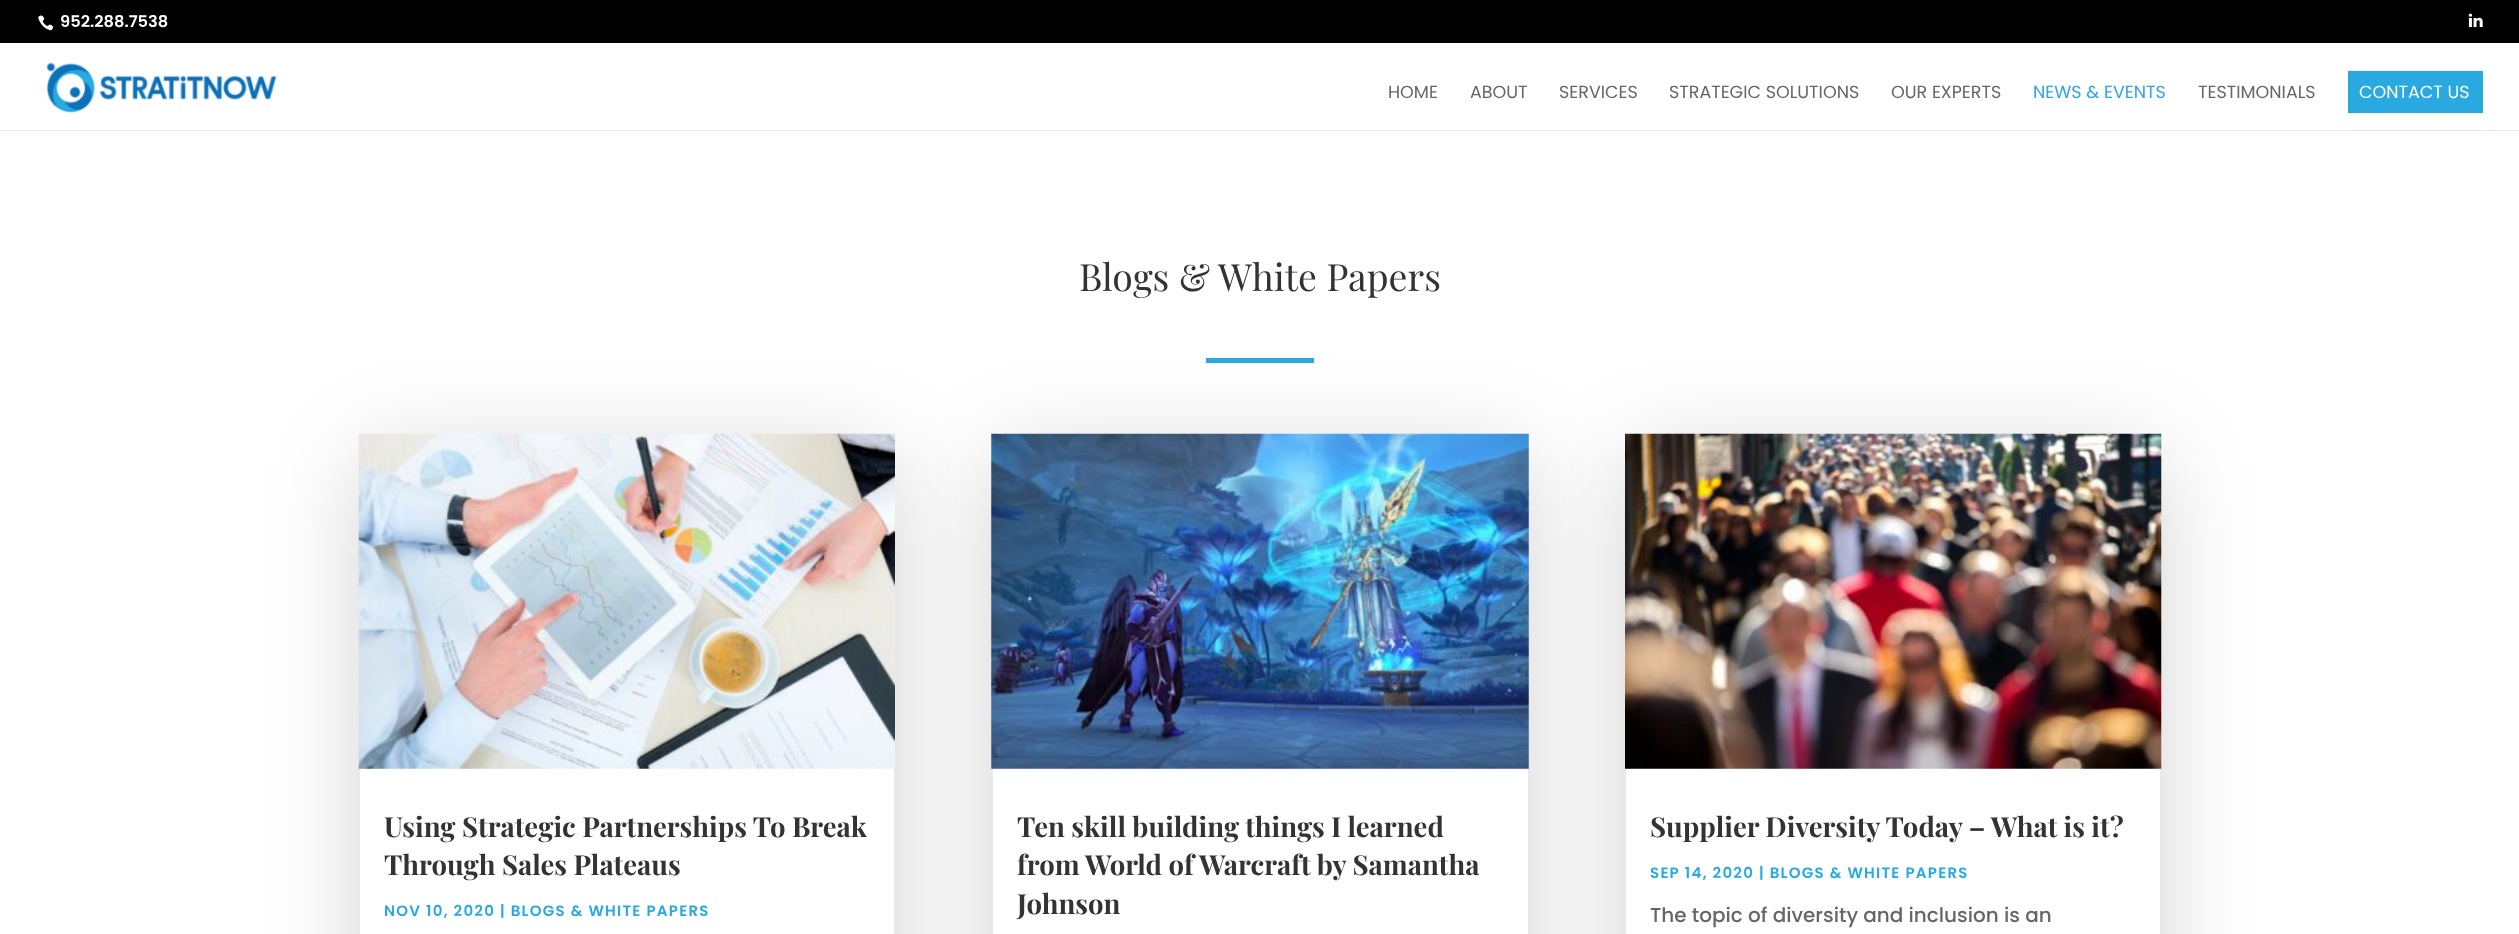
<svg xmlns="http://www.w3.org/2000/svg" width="2519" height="934">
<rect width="100%" height="100%" fill="#fff"/>
<rect width="2519" height="43" fill="#000"/>
<image x="38" y="15" width="15" height="16" href="media/1.png"/>
<text x="60" y="27" style="font-family:Poppins;font-size:16.25px;font-weight:600;fill:#fff">952.288.7538</text>
<image x="2468" y="13" width="15" height="14" href="media/2.png"/>
<rect y="130" width="2519" height="1" fill="#e6e6e6"/>
<image x="46" y="62" width="232" height="51" href="media/3.png"/>
<text x="1388" y="98" style="font-family:Poppins;font-size:17.5px;fill:#666">HOME</text>
<text x="1470" y="98" style="font-family:Poppins;font-size:17.5px;fill:#666">ABOUT</text>
<text x="1559" y="98" style="font-family:Poppins;font-size:17.5px;fill:#666">SERVICES</text>
<text x="1669" y="98" style="font-family:Poppins;font-size:17.5px;fill:#666">STRATEGIC SOLUTIONS</text>
<text x="1891" y="98" style="font-family:Poppins;font-size:17.5px;fill:#666">OUR EXPERTS</text>
<text x="2033" y="98" style="font-family:Poppins;font-size:17.5px;fill:#2ea3f2">NEWS &amp; EVENTS</text>
<text x="2198" y="98" style="font-family:Poppins;font-size:17.5px;fill:#666">TESTIMONIALS</text>
<rect x="2348" y="71" width="135" height="42" fill="#28aae0"/>
<text x="2359" y="98" style="font-family:Poppins;font-size:17.5px;fill:#fff">CONTACT US</text>
<text x="1079" y="291" style="font-family:Playfair Display;font-size:37.5px;fill:#333">Blogs &amp; White Papers</text>
<rect x="368" y="461" width="518" height="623" fill="#00000033" filter="blur(50px)"/>
<rect x="360" y="768" width="534" height="166" fill="#fff"/>
<rect x="1000" y="461" width="520" height="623" fill="#00000033" filter="blur(50px)"/>
<rect x="1206" y="358" width="108" height="5" fill="#28aae0"/>
<image x="358" y="433" width="537" height="336" href="media/4.png"/>
<text x="384" y="837" style="font-family:Playfair Display;font-size:27.5px;font-weight:bold;fill:#333">Using Strategic Partnerships To Break</text>
<text x="384" y="875" style="font-family:Playfair Display;font-size:27.5px;font-weight:bold;fill:#333">Through Sales Plateaus</text>
<text x="384" y="916" style="font-family:Poppins;font-size:15px;font-weight:600;letter-spacing:1.25px;fill:#28aae0">NOV 10, 2020 | BLOGS &amp; WHITE PAPERS</text>
<rect x="993" y="768" width="535" height="166" fill="#fff"/>
<rect x="1634" y="461" width="519" height="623" fill="#00000033" filter="blur(50px)"/>
<image x="991" y="433" width="538" height="336" href="media/5.png"/>
<text x="1017" y="837" style="font-family:Playfair Display;font-size:27.5px;font-weight:bold;fill:#333">Ten skill building things I learned</text>
<text x="1017" y="875" style="font-family:Playfair Display;font-size:27.5px;font-weight:bold;fill:#333">from World of Warcraft by Samantha</text>
<text x="1017" y="914" style="font-family:Playfair Display;font-size:27.5px;font-weight:bold;fill:#333">Johnson</text>
<rect x="1626" y="768" width="534" height="166" fill="#fff"/>
<image x="1625" y="433" width="537" height="336" href="media/6.png"/>
<text x="1650" y="837" style="font-family:Playfair Display;font-size:27.5px;font-weight:bold;fill:#333">Supplier Diversity Today – What is it?</text>
<text x="1650" y="878" style="font-family:Poppins;font-size:15px;font-weight:600;letter-spacing:1.25px;fill:#28aae0">SEP 14, 2020 | BLOGS &amp; WHITE PAPERS</text>
<text x="1650" y="922" style="font-family:Poppins;font-size:20px;font-weight:500;fill:#666">The topic of diversity and inclusion is an</text>
</svg>
